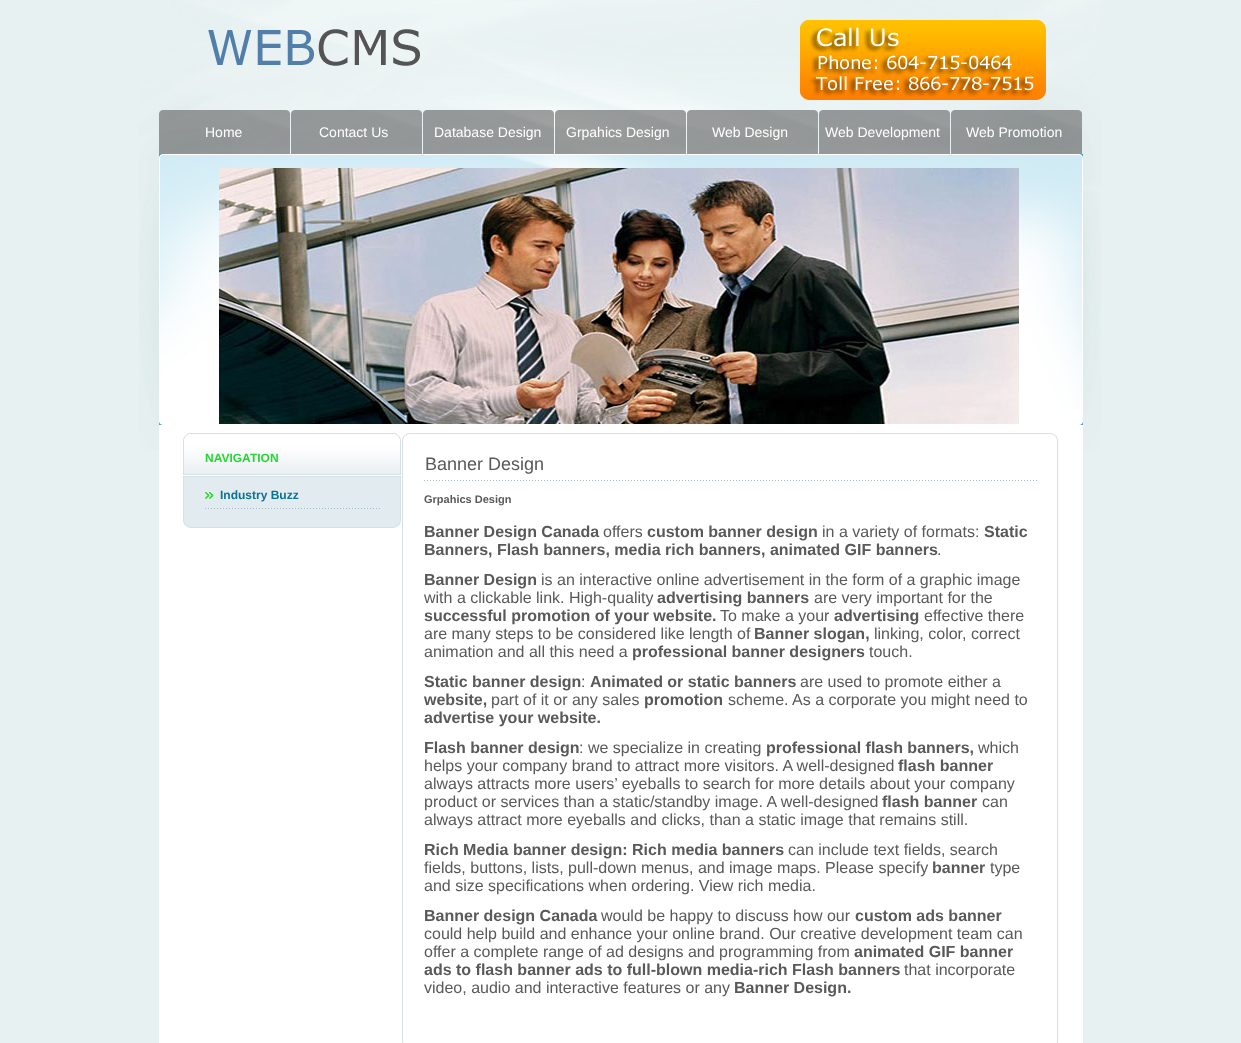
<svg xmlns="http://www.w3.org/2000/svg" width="1241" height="1043">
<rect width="100%" height="100%" fill="#e7f1f1"/>
<image x="139" y="0" width="962" height="450" href="media/1.png"/>
<image x="208" y="29" width="212" height="37" href="media/2.png"/>
<image x="800" y="20" width="246" height="80" href="media/3.png"/>
<image x="159" y="110" width="131" height="44" href="media/4.png"/>
<text x="205" y="137" style="font-family:Liberation Sans;font-size:14px;fill:#fff">Home</text>
<image x="291" y="110" width="131" height="44" href="media/5.png"/>
<text x="319" y="137" style="font-family:Liberation Sans;font-size:14px;fill:#fff">Contact Us</text>
<image x="423" y="110" width="131" height="44" href="media/6.png"/>
<text x="434" y="137" style="font-family:Liberation Sans;font-size:14px;fill:#fff">Database Design</text>
<image x="555" y="110" width="131" height="44" href="media/7.png"/>
<text x="566" y="137" style="font-family:Liberation Sans;font-size:14px;fill:#fff">Grpahics Design</text>
<image x="687" y="110" width="131" height="44" href="media/8.png"/>
<text x="712" y="137" style="font-family:Liberation Sans;font-size:14px;fill:#fff">Web Design</text>
<image x="819" y="110" width="131" height="44" href="media/9.png"/>
<text x="825" y="137" style="font-family:Liberation Sans;font-size:14px;fill:#fff">Web Development</text>
<image x="951" y="110" width="131" height="44" href="media/10.png"/>
<text x="966" y="137" style="font-family:Liberation Sans;font-size:14px;fill:#fff">Web Promotion</text>
<rect x="159" y="409" width="924" height="634" fill="#fff"/>
<image x="159" y="154" width="924" height="255" href="media/11.png"/>
<image x="159" y="421" width="924" height="4" href="media/12.png"/>
<image x="219" y="168" width="800" height="256" href="media/13.png"/>
<image x="183" y="433" width="218" height="7" href="media/14.png"/>
<image x="183" y="520" width="218" height="8" href="media/15.png"/>
<image x="184" y="440" width="216" height="34" href="media/16.png"/>
<rect x="400" y="440" width="1" height="35" fill="#d6e1e5"/>
<rect x="183" y="474" width="218" height="1" fill="#d6e1e5"/>
<rect x="183" y="440" width="1" height="35" fill="#d6e1e5"/>
<text x="205" y="462" style="font-family:Liberation Sans;font-size:12px;font-weight:bold;fill:#25d734">NAVIGATION</text>
<rect x="184" y="477" width="216" height="43" fill="#e2ebef"/>
<rect x="183" y="476" width="218" height="1" fill="#d6e1e5"/>
<rect x="400" y="476" width="1" height="44" fill="#d6e1e5"/>
<rect x="183" y="476" width="1" height="44" fill="#d6e1e5"/>
<image x="205" y="508" width="175" height="1" href="media/17.png"/>
<image x="205" y="491" width="9" height="8" href="media/18.png"/>
<text x="220" y="499" style="font-family:Liberation Sans;font-size:12px;font-weight:bold;fill:#0a7293">Industry Buzz</text>
<rect x="402" y="433" width="1" height="610" fill="#d7e1e5"/>
<rect x="1057" y="433" width="1" height="610" fill="#d7e1e5"/>
<rect x="403" y="433" width="654" height="1" fill="#d7e1e5"/>
<image x="402" y="433" width="7" height="7" href="media/19.png"/>
<image x="1051" y="433" width="7" height="7" href="media/20.png"/>
<image x="402" y="1042" width="2" height="1" href="media/21.png"/>
<image x="1056" y="1042" width="2" height="1" href="media/22.png"/>
<image x="424" y="480" width="613" height="1" href="media/23.png"/>
<text x="425" y="470" style="font-family:Liberation Sans;font-size:18px;fill:#595959">Banner Design</text>
<text x="424" y="503" style="font-family:Liberation Sans;font-size:11px;font-weight:bold;fill:#595959">Grpahics Design</text>
<text x="424" y="537" style="font-family:Liberation Sans;font-size:16px;font-weight:bold;fill:#595959">Banner Design Canada</text>
<text x="603" y="537" style="font-family:Liberation Sans;font-size:16px;fill:#595959">offers</text>
<text x="647" y="537" style="font-family:Liberation Sans;font-size:16px;font-weight:bold;fill:#595959">custom banner design</text>
<text x="822" y="537" style="font-family:Liberation Sans;font-size:16px;fill:#595959">in a variety of formats:</text>
<text x="984" y="537" style="font-family:Liberation Sans;font-size:16px;font-weight:bold;fill:#595959">Static</text>
<text x="424" y="555" style="font-family:Liberation Sans;font-size:16px;font-weight:bold;fill:#595959">Banners, Flash banners, media rich banners, animated GIF banners</text>
<text x="937" y="555" style="font-family:Liberation Sans;font-size:16px;fill:#595959">.</text>
<text x="424" y="585" style="font-family:Liberation Sans;font-size:16px;font-weight:bold;fill:#595959">Banner Design</text>
<text x="541" y="585" style="font-family:Liberation Sans;font-size:16px;fill:#595959">is an interactive online advertisement in the form of a graphic image</text>
<text x="424" y="603" style="font-family:Liberation Sans;font-size:16px;fill:#595959">with a clickable link. High-quality</text>
<text x="657" y="603" style="font-family:Liberation Sans;font-size:16px;font-weight:bold;fill:#595959">advertising banners</text>
<text x="814" y="603" style="font-family:Liberation Sans;font-size:16px;fill:#595959">are very important for the</text>
<text x="424" y="621" style="font-family:Liberation Sans;font-size:16px;font-weight:bold;fill:#595959">successful promotion of your website.</text>
<text x="720" y="621" style="font-family:Liberation Sans;font-size:16px;fill:#595959">To make a your</text>
<text x="834" y="621" style="font-family:Liberation Sans;font-size:16px;font-weight:bold;fill:#595959">advertising</text>
<text x="924" y="621" style="font-family:Liberation Sans;font-size:16px;fill:#595959">effective there</text>
<text x="424" y="639" style="font-family:Liberation Sans;font-size:16px;fill:#595959">are many steps to be considered like length of</text>
<text x="754" y="639" style="font-family:Liberation Sans;font-size:16px;font-weight:bold;fill:#595959">Banner slogan,</text>
<text x="874" y="639" style="font-family:Liberation Sans;font-size:16px;fill:#595959">linking, color, correct</text>
<text x="424" y="657" style="font-family:Liberation Sans;font-size:16px;fill:#595959">animation and all this need a</text>
<text x="632" y="657" style="font-family:Liberation Sans;font-size:16px;font-weight:bold;fill:#595959">professional banner designers</text>
<text x="869" y="657" style="font-family:Liberation Sans;font-size:16px;fill:#595959">touch.</text>
<text x="424" y="687" style="font-family:Liberation Sans;font-size:16px;font-weight:bold;fill:#595959">Static banner design</text>
<text x="581" y="687" style="font-family:Liberation Sans;font-size:16px;fill:#595959">:</text>
<text x="590" y="687" style="font-family:Liberation Sans;font-size:16px;font-weight:bold;fill:#595959">Animated or static banners</text>
<text x="800" y="687" style="font-family:Liberation Sans;font-size:16px;fill:#595959">are used to promote either a</text>
<text x="424" y="705" style="font-family:Liberation Sans;font-size:16px;font-weight:bold;fill:#595959">website,</text>
<text x="491" y="705" style="font-family:Liberation Sans;font-size:16px;fill:#595959">part of it or any sales</text>
<text x="644" y="705" style="font-family:Liberation Sans;font-size:16px;font-weight:bold;fill:#595959">promotion</text>
<text x="728" y="705" style="font-family:Liberation Sans;font-size:16px;fill:#595959">scheme. As a corporate you might need to</text>
<text x="424" y="723" style="font-family:Liberation Sans;font-size:16px;font-weight:bold;fill:#595959">advertise your website.</text>
<text x="424" y="753" style="font-family:Liberation Sans;font-size:16px;font-weight:bold;fill:#595959">Flash banner design</text>
<text x="579" y="753" style="font-family:Liberation Sans;font-size:16px;fill:#595959">: we specialize in creating</text>
<text x="766" y="753" style="font-family:Liberation Sans;font-size:16px;font-weight:bold;fill:#595959">professional flash banners,</text>
<text x="978" y="753" style="font-family:Liberation Sans;font-size:16px;fill:#595959">which</text>
<text x="424" y="771" style="font-family:Liberation Sans;font-size:16px;fill:#595959">helps your company brand to attract more visitors. A well-designed</text>
<text x="898" y="771" style="font-family:Liberation Sans;font-size:16px;font-weight:bold;fill:#595959">flash banner</text>
<text x="424" y="789" style="font-family:Liberation Sans;font-size:16px;fill:#595959">always attracts more users’ eyeballs to search for more details about your company</text>
<text x="424" y="807" style="font-family:Liberation Sans;font-size:16px;fill:#595959">product or services than a static/standby image. A well-designed</text>
<text x="882" y="807" style="font-family:Liberation Sans;font-size:16px;font-weight:bold;fill:#595959">flash banner</text>
<text x="982" y="807" style="font-family:Liberation Sans;font-size:16px;fill:#595959">can</text>
<text x="424" y="825" style="font-family:Liberation Sans;font-size:16px;fill:#595959">always attract more eyeballs and clicks, than a static image that remains still.</text>
<text x="424" y="855" style="font-family:Liberation Sans;font-size:16px;font-weight:bold;fill:#595959">Rich Media banner design: Rich media banners</text>
<text x="788" y="855" style="font-family:Liberation Sans;font-size:16px;fill:#595959">can include text fields, search</text>
<text x="424" y="873" style="font-family:Liberation Sans;font-size:16px;fill:#595959">fields, buttons, lists, pull-down menus, and image maps. Please specify</text>
<text x="932" y="873" style="font-family:Liberation Sans;font-size:16px;font-weight:bold;fill:#595959">banner</text>
<text x="990" y="873" style="font-family:Liberation Sans;font-size:16px;fill:#595959">type</text>
<text x="424" y="891" style="font-family:Liberation Sans;font-size:16px;fill:#595959">and size specifications when ordering. View rich media.</text>
<text x="424" y="921" style="font-family:Liberation Sans;font-size:16px;font-weight:bold;fill:#595959">Banner design Canada</text>
<text x="601" y="921" style="font-family:Liberation Sans;font-size:16px;fill:#595959">would be happy to discuss how our</text>
<text x="855" y="921" style="font-family:Liberation Sans;font-size:16px;font-weight:bold;fill:#595959">custom ads banner</text>
<text x="424" y="939" style="font-family:Liberation Sans;font-size:16px;fill:#595959">could help build and enhance your online brand. Our creative development team can</text>
<text x="424" y="957" style="font-family:Liberation Sans;font-size:16px;fill:#595959">offer a complete range of ad designs and programming from</text>
<text x="854" y="957" style="font-family:Liberation Sans;font-size:16px;font-weight:bold;fill:#595959">animated GIF banner</text>
<text x="424" y="975" style="font-family:Liberation Sans;font-size:16px;font-weight:bold;fill:#595959">ads to flash banner ads to full-blown media-rich Flash banners</text>
<text x="904" y="975" style="font-family:Liberation Sans;font-size:16px;fill:#595959">that incorporate</text>
<text x="424" y="993" style="font-family:Liberation Sans;font-size:16px;fill:#595959">video, audio and interactive features or any</text>
<text x="734" y="993" style="font-family:Liberation Sans;font-size:16px;font-weight:bold;fill:#595959">Banner Design.</text>
</svg>
